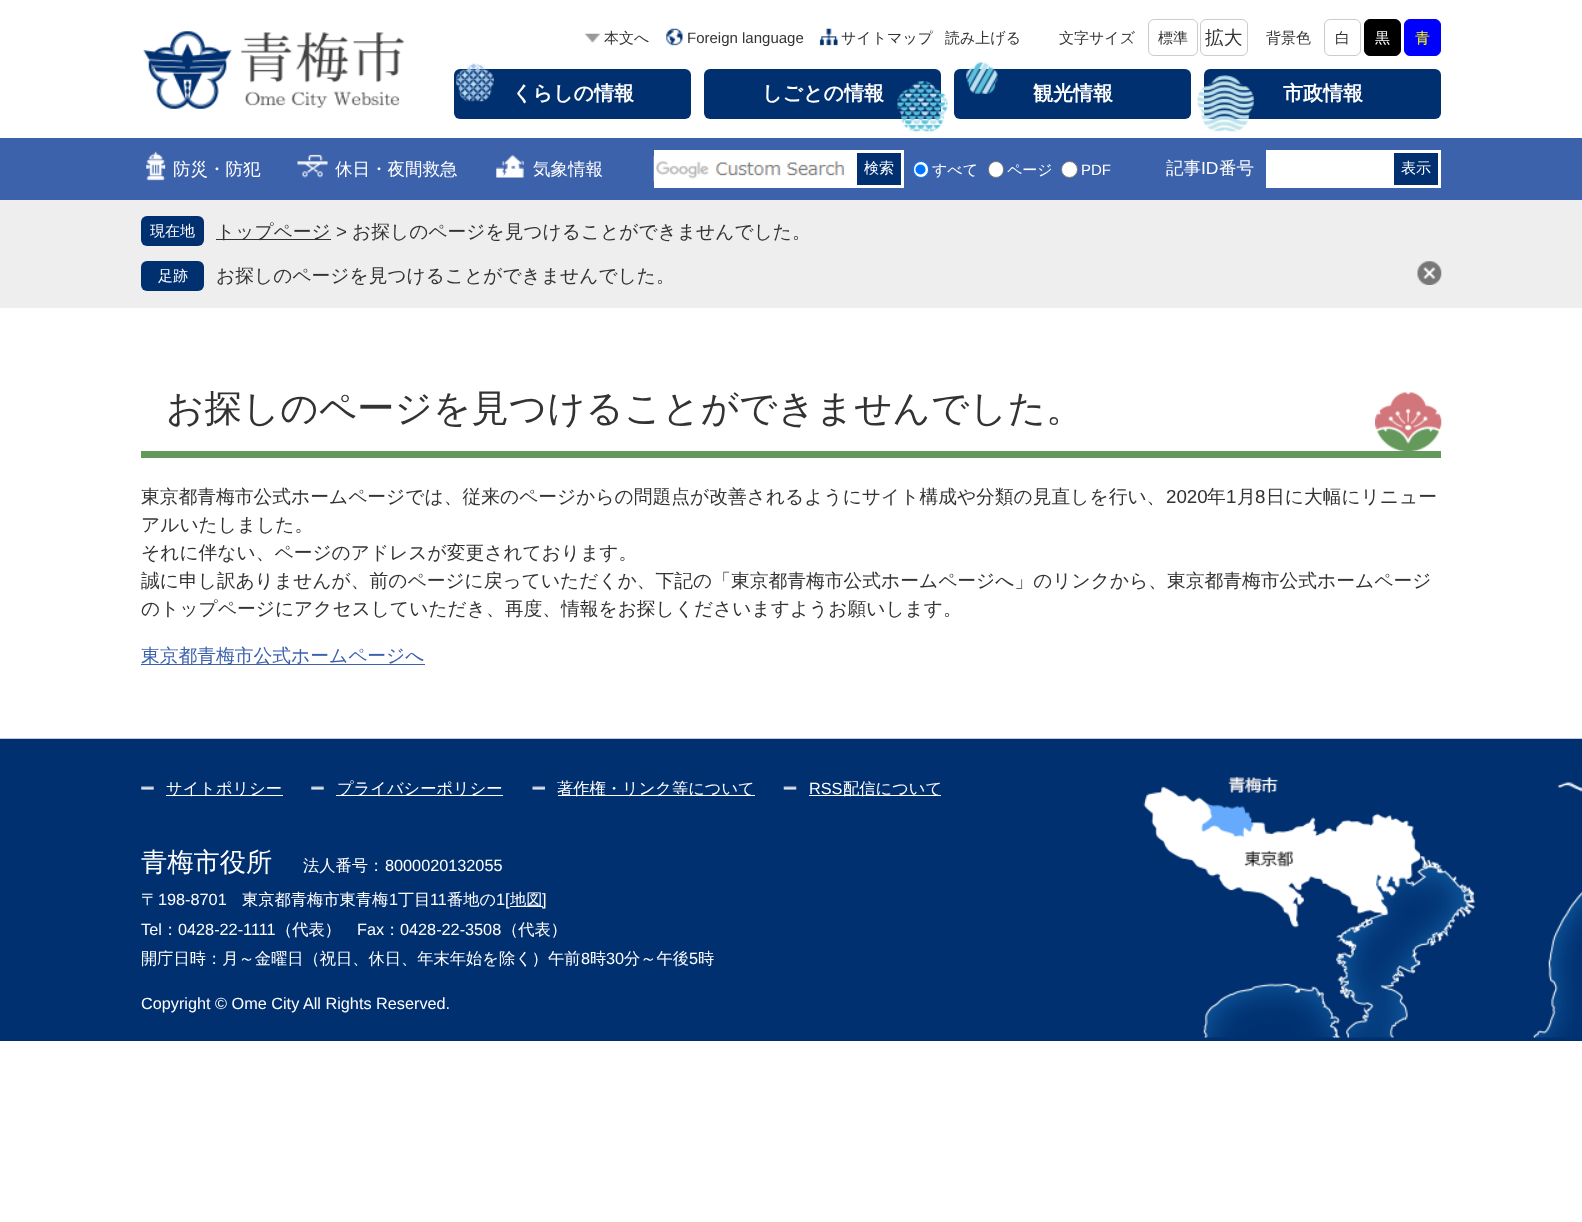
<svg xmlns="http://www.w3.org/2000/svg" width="1582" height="1222">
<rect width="100%" height="100%" fill="#fff"/>
<image x="143" y="31" width="261" height="78" href="media/1.png"/>
<image x="585" y="33" width="15" height="10" href="media/2.png"/>
<text x="604" y="43" style="font-family:WenQuanYi Zen Hei;font-size:15px;font-weight:500;fill:#333">本文へ</text>
<image x="666" y="28" width="17" height="18" href="media/3.png"/>
<text x="687" y="43" style="font-family:Liberation Sans;font-size:15px;fill:#333">Foreign language</text>
<image x="819" y="28" width="19" height="18" href="media/4.png"/>
<text x="841" y="43" style="font-family:WenQuanYi Zen Hei;font-size:15px;font-weight:500;fill:#333">サイトマップ</text>
<text x="945" y="43" style="font-family:WenQuanYi Zen Hei;font-size:15px;font-weight:500;fill:#333">読み上げる</text>
<text x="1059" y="43" style="font-family:WenQuanYi Zen Hei;font-size:15px;font-weight:500;fill:#333">文字サイズ</text>
<rect x="1148.5" y="19.5" width="49" height="36" rx="5.5" fill="none" stroke="#cbcbcb"/>
<text x="1158" y="43" style="font-family:WenQuanYi Zen Hei;font-size:15px;font-weight:500;fill:#333">標準</text>
<rect x="1200.5" y="19.5" width="47" height="36" rx="5.5" fill="none" stroke="#cbcbcb"/>
<text x="1205" y="44" style="font-family:WenQuanYi Zen Hei;font-size:18.75px;font-weight:500;fill:#333">拡大</text>
<text x="1266" y="43" style="font-family:WenQuanYi Zen Hei;font-size:15px;font-weight:500;fill:#333">背景色</text>
<rect x="1324.5" y="19.5" width="36" height="36" rx="5.5" fill="none" stroke="#cbcbcb"/>
<text x="1335" y="43" style="font-family:WenQuanYi Zen Hei;font-size:15px;font-weight:500;fill:#333">白</text>
<rect x="1364.5" y="19.5" width="36" height="36" rx="5.5" fill="#000" stroke="#000"/>
<text x="1375" y="43" style="font-family:WenQuanYi Zen Hei;font-size:15px;font-weight:500;fill:#fff">黒</text>
<rect x="1404.5" y="19.5" width="36" height="36" rx="5.5" fill="#00f" stroke="#00f"/>
<text x="1415" y="43" style="font-family:WenQuanYi Zen Hei;font-size:15px;font-weight:500;fill:#ff0">青</text>
<rect x="454" y="69" width="237" height="50" rx="6" fill="#003070"/>
<image x="456" y="63" width="38" height="39" href="media/5.png"/>
<text x="512" y="100" style="font-family:WenQuanYi Zen Hei;font-size:20px;font-weight:bold;fill:#fff">くらしの情報</text>
<rect x="704" y="69" width="237" height="50" rx="6" fill="#003070"/>
<text x="762" y="100" style="font-family:WenQuanYi Zen Hei;font-size:20px;font-weight:bold;fill:#fff">しごとの情報</text>
<image x="897" y="81" width="51" height="51" href="media/6.png"/>
<rect x="954" y="69" width="237" height="50" rx="6" fill="#003070"/>
<image x="966" y="62" width="32" height="32" href="media/7.png"/>
<text x="1033" y="100" style="font-family:WenQuanYi Zen Hei;font-size:20px;font-weight:bold;fill:#fff">観光情報</text>
<rect x="1204" y="69" width="237" height="50" rx="6" fill="#003070"/>
<image x="1197" y="75" width="57" height="57" href="media/8.png"/>
<text x="1283" y="100" style="font-family:WenQuanYi Zen Hei;font-size:20px;font-weight:bold;fill:#fff">市政情報</text>
<rect y="138" width="1582" height="62" fill="#3d62ac"/>
<image x="146" y="151" width="20" height="30" href="media/9.png"/>
<text x="173" y="175" style="font-family:WenQuanYi Zen Hei;font-size:17.5px;font-weight:500;fill:#fff">防災・防犯</text>
<image x="297" y="154" width="31" height="24" href="media/10.png"/>
<text x="335" y="175" style="font-family:WenQuanYi Zen Hei;font-size:17.5px;font-weight:500;fill:#fff">休日・夜間救急</text>
<image x="496" y="154" width="28" height="24" href="media/11.png"/>
<text x="533" y="175" style="font-family:WenQuanYi Zen Hei;font-size:17.5px;font-weight:500;fill:#fff">気象情報</text>
<rect x="654" y="150" width="200" height="38" fill="#fff"/>
<image x="653" y="156" width="192" height="26" href="media/12.png"/>
<rect x="855.5" y="151.5" width="47" height="35" fill="#003070" stroke="#fff" stroke-width="3"/>
<text x="864" y="173" style="font-family:WenQuanYi Zen Hei;font-size:15px;font-weight:500;fill:#fff">検索</text>
<rect x="913.5" y="161.5" width="15" height="16" rx="7.5" fill="#fff" stroke="#0075ff"/>
<circle cx="920.5" cy="169.5" r="5" fill="#0075ff"/>
<text x="932" y="175" style="font-family:WenQuanYi Zen Hei;font-size:15px;font-weight:500;fill:#fff">すべて</text>
<rect x="988.5" y="161.5" width="15" height="16" rx="7.5" fill="#fff" stroke="#767676"/>
<text x="1007" y="175" style="font-family:WenQuanYi Zen Hei;font-size:15px;font-weight:500;fill:#fff">ページ</text>
<circle cx="1069.5" cy="169.5" r="8" fill="#fff" stroke="#767676"/>
<text x="1081" y="175" style="font-family:Liberation Sans;font-size:15px;fill:#fff">PDF</text>
<text x="1166" y="174" style="font-family:WenQuanYi Zen Hei;font-size:17.5px;font-weight:500;fill:#fff">記事</text>
<text x="1201" y="174" style="font-family:Liberation Sans;font-size:17.5px;fill:#fff">ID</text>
<text x="1219" y="174" style="font-family:WenQuanYi Zen Hei;font-size:17.5px;font-weight:500;fill:#fff">番号</text>
<rect x="1266" y="150" width="125" height="38" fill="#fff"/>
<rect x="1392.5" y="151.5" width="47" height="35" fill="#003070" stroke="#fff" stroke-width="3"/>
<text x="1401" y="173" style="font-family:WenQuanYi Zen Hei;font-size:15px;font-weight:500;fill:#fff">表示</text>
<rect y="200" width="1582" height="108" fill="#eee"/>
<rect x="141" y="216" width="63" height="30" rx="6" fill="#003070"/>
<text x="150" y="236" style="font-family:WenQuanYi Zen Hei;font-size:15px;font-weight:500;fill:#fff">現在地</text>
<rect x="216" y="239" width="115" height="1" fill="#333"/>
<text x="216" y="238" style="font-family:WenQuanYi Zen Hei;font-size:18.75px;font-weight:500;fill:#333">トップページ</text>
<text x="336" y="238" style="font-family:Liberation Sans;font-size:18.75px;fill:#333">&gt;</text>
<text x="352" y="238" style="font-family:WenQuanYi Zen Hei;font-size:18.75px;font-weight:500;fill:#333">お探しのページを見つけることができませんでした。</text>
<rect x="141" y="261" width="63" height="30" rx="6" fill="#003070"/>
<text x="158" y="281" style="font-family:WenQuanYi Zen Hei;font-size:15px;font-weight:500;fill:#fff">足跡</text>
<text x="216" y="282" style="font-family:WenQuanYi Zen Hei;font-size:18.75px;font-weight:500;fill:#333">お探しのページを見つけることができませんでした。</text>
<image x="1417" y="261" width="25" height="24" href="media/13.png"/>
<image x="1375" y="392" width="67" height="59" href="media/14.png"/>
<rect x="141" y="451" width="1300" height="7" fill="#64995c"/>
<text x="166" y="421" style="font-family:WenQuanYi Zen Hei;font-size:37.5px;font-weight:500;fill:#333">お探しのページを見つけることができませんでした。</text>
<text x="141" y="503" style="font-family:WenQuanYi Zen Hei;font-size:18.75px;font-weight:500;fill:#333">東京都青梅市公式ホームページでは、従来のページからの問題点が改善されるようにサイト構成や分類の見直しを行い、</text>
<text x="1166" y="503" style="font-family:Liberation Sans;font-size:18.75px;fill:#333">2020</text>
<text x="1207" y="503" style="font-family:WenQuanYi Zen Hei;font-size:18.75px;font-weight:500;fill:#333">年</text>
<text x="1226" y="503" style="font-family:Liberation Sans;font-size:18.75px;fill:#333">1</text>
<text x="1237" y="503" style="font-family:WenQuanYi Zen Hei;font-size:18.75px;font-weight:500;fill:#333">月</text>
<text x="1255" y="503" style="font-family:Liberation Sans;font-size:18.75px;fill:#333">8</text>
<text x="1266" y="503" style="font-family:WenQuanYi Zen Hei;font-size:18.75px;font-weight:500;fill:#333">日に大幅にリニュー</text>
<text x="141" y="531" style="font-family:WenQuanYi Zen Hei;font-size:18.75px;font-weight:500;fill:#333">アルいたしました。</text>
<text x="141" y="559" style="font-family:WenQuanYi Zen Hei;font-size:18.75px;font-weight:500;fill:#333">それに伴ない、ページのアドレスが変更されております。</text>
<text x="141" y="587" style="font-family:WenQuanYi Zen Hei;font-size:18.75px;font-weight:500;fill:#333">誠に申し訳ありませんが、前のページに戻っていただくか、下記の「東京都青梅市公式ホームページへ」のリンクから、東京都青梅市公式ホームページ</text>
<text x="141" y="615" style="font-family:WenQuanYi Zen Hei;font-size:18.75px;font-weight:500;fill:#333">のトップページにアクセスしていただき、再度、情報をお探しくださいますようお願いします。</text>
<rect x="141" y="664" width="284" height="1" fill="#3d62ac"/>
<text x="141" y="662" style="font-family:WenQuanYi Zen Hei;font-size:18.75px;font-weight:500;fill:#3d62ac">東京都青梅市公式ホームページへ</text>
<rect y="1037" width="1582" height="4" fill="#003070"/>
<image x="0" y="738" width="1582" height="300" href="media/15.png"/>
<image x="141" y="786" width="13" height="4" href="media/16.png"/>
<rect x="166" y="795" width="117" height="1" fill="#fff"/>
<text x="166" y="794" style="font-family:WenQuanYi Zen Hei;font-size:16.25px;font-weight:500;fill:#fff">サイトポリシー</text>
<image x="311" y="786" width="13" height="4" href="media/16.png"/>
<rect x="336" y="795" width="167" height="1" fill="#fff"/>
<text x="337" y="794" style="font-family:WenQuanYi Zen Hei;font-size:16.25px;font-weight:500;fill:#fff">プライバシーポリシー</text>
<image x="532" y="786" width="13" height="4" href="media/17.png"/>
<rect x="558" y="795" width="197" height="1" fill="#fff"/>
<text x="557" y="794" style="font-family:WenQuanYi Zen Hei;font-size:16.25px;font-weight:500;fill:#fff">著作権・リンク等について</text>
<image x="783" y="786" width="14" height="4" href="media/18.png"/>
<text x="809" y="794" style="font-family:Liberation Sans;font-size:16.25px;fill:#fff">RSS</text>
<rect x="809" y="795" width="132" height="1" fill="#fff"/>
<text x="843" y="794" style="font-family:WenQuanYi Zen Hei;font-size:16.25px;font-weight:500;fill:#fff">配信について</text>
<text x="141" y="871" style="font-family:WenQuanYi Zen Hei;font-size:26.25px;font-weight:500;fill:#fff">青梅市役所</text>
<text x="303" y="871" style="font-family:WenQuanYi Zen Hei;font-size:16.25px;font-weight:500;fill:#fff">法人番号：</text>
<text x="385" y="871" style="font-family:Liberation Sans;font-size:16.25px;fill:#fff">8000020132055</text>
<text x="141" y="905" style="font-family:WenQuanYi Zen Hei;font-size:16.25px;font-weight:500;fill:#fff">〒</text>
<text x="158" y="905" style="font-family:Liberation Sans;font-size:16.25px;fill:#fff">198-8701</text>
<text x="242" y="905" style="font-family:WenQuanYi Zen Hei;font-size:16.25px;font-weight:500;fill:#fff">東京都青梅市東青梅</text>
<text x="389" y="905" style="font-family:Liberation Sans;font-size:16.25px;fill:#fff">1</text>
<text x="398" y="905" style="font-family:WenQuanYi Zen Hei;font-size:16.25px;font-weight:500;fill:#fff">丁目</text>
<text x="430" y="905" style="font-family:Liberation Sans;font-size:16.25px;fill:#fff">11</text>
<text x="447" y="905" style="font-family:WenQuanYi Zen Hei;font-size:16.25px;font-weight:500;fill:#fff">番地の</text>
<text x="496" y="905" style="font-family:Liberation Sans;font-size:16.25px;fill:#fff">1[</text>
<rect x="510" y="906" width="33" height="1" fill="#fff"/>
<text x="510" y="905" style="font-family:WenQuanYi Zen Hei;font-size:16.25px;font-weight:500;fill:#fff">地図</text>
<text x="542" y="905" style="font-family:Liberation Sans;font-size:16.25px;fill:#fff">]</text>
<text x="141" y="935" style="font-family:Liberation Sans;font-size:16.25px;fill:#fff">Tel</text>
<text x="162" y="935" style="font-family:WenQuanYi Zen Hei;font-size:16.25px;font-weight:500;fill:#fff">：</text>
<text x="178" y="935" style="font-family:Liberation Sans;font-size:16.25px;fill:#fff">0428-22-1111</text>
<text x="276" y="935" style="font-family:WenQuanYi Zen Hei;font-size:16.25px;font-weight:500;fill:#fff">（代表）</text>
<text x="357" y="935" style="font-family:Liberation Sans;font-size:16.25px;fill:#fff">Fax</text>
<text x="384" y="935" style="font-family:WenQuanYi Zen Hei;font-size:16.25px;font-weight:500;fill:#fff">：</text>
<text x="400" y="935" style="font-family:Liberation Sans;font-size:16.25px;fill:#fff">0428-22-3508</text>
<text x="502" y="935" style="font-family:WenQuanYi Zen Hei;font-size:16.25px;font-weight:500;fill:#fff">（代表）</text>
<text x="141" y="964" style="font-family:WenQuanYi Zen Hei;font-size:16.25px;font-weight:500;fill:#fff">開庁日時：月～金曜日（祝日、休日、年末年始を除く）午前</text>
<text x="581" y="964" style="font-family:Liberation Sans;font-size:16.25px;fill:#fff">8</text>
<text x="590" y="964" style="font-family:WenQuanYi Zen Hei;font-size:16.25px;font-weight:500;fill:#fff">時</text>
<text x="606" y="964" style="font-family:Liberation Sans;font-size:16.25px;fill:#fff">30</text>
<text x="624" y="964" style="font-family:WenQuanYi Zen Hei;font-size:16.25px;font-weight:500;fill:#fff">分～午後</text>
<text x="689" y="964" style="font-family:Liberation Sans;font-size:16.25px;fill:#fff">5</text>
<text x="698" y="964" style="font-family:WenQuanYi Zen Hei;font-size:16.25px;font-weight:500;fill:#fff">時</text>
<text x="141" y="1009" style="font-family:Liberation Sans;font-size:16.25px;fill:#fff">Copyright © Ome City All Rights Reserved.</text>
</svg>
